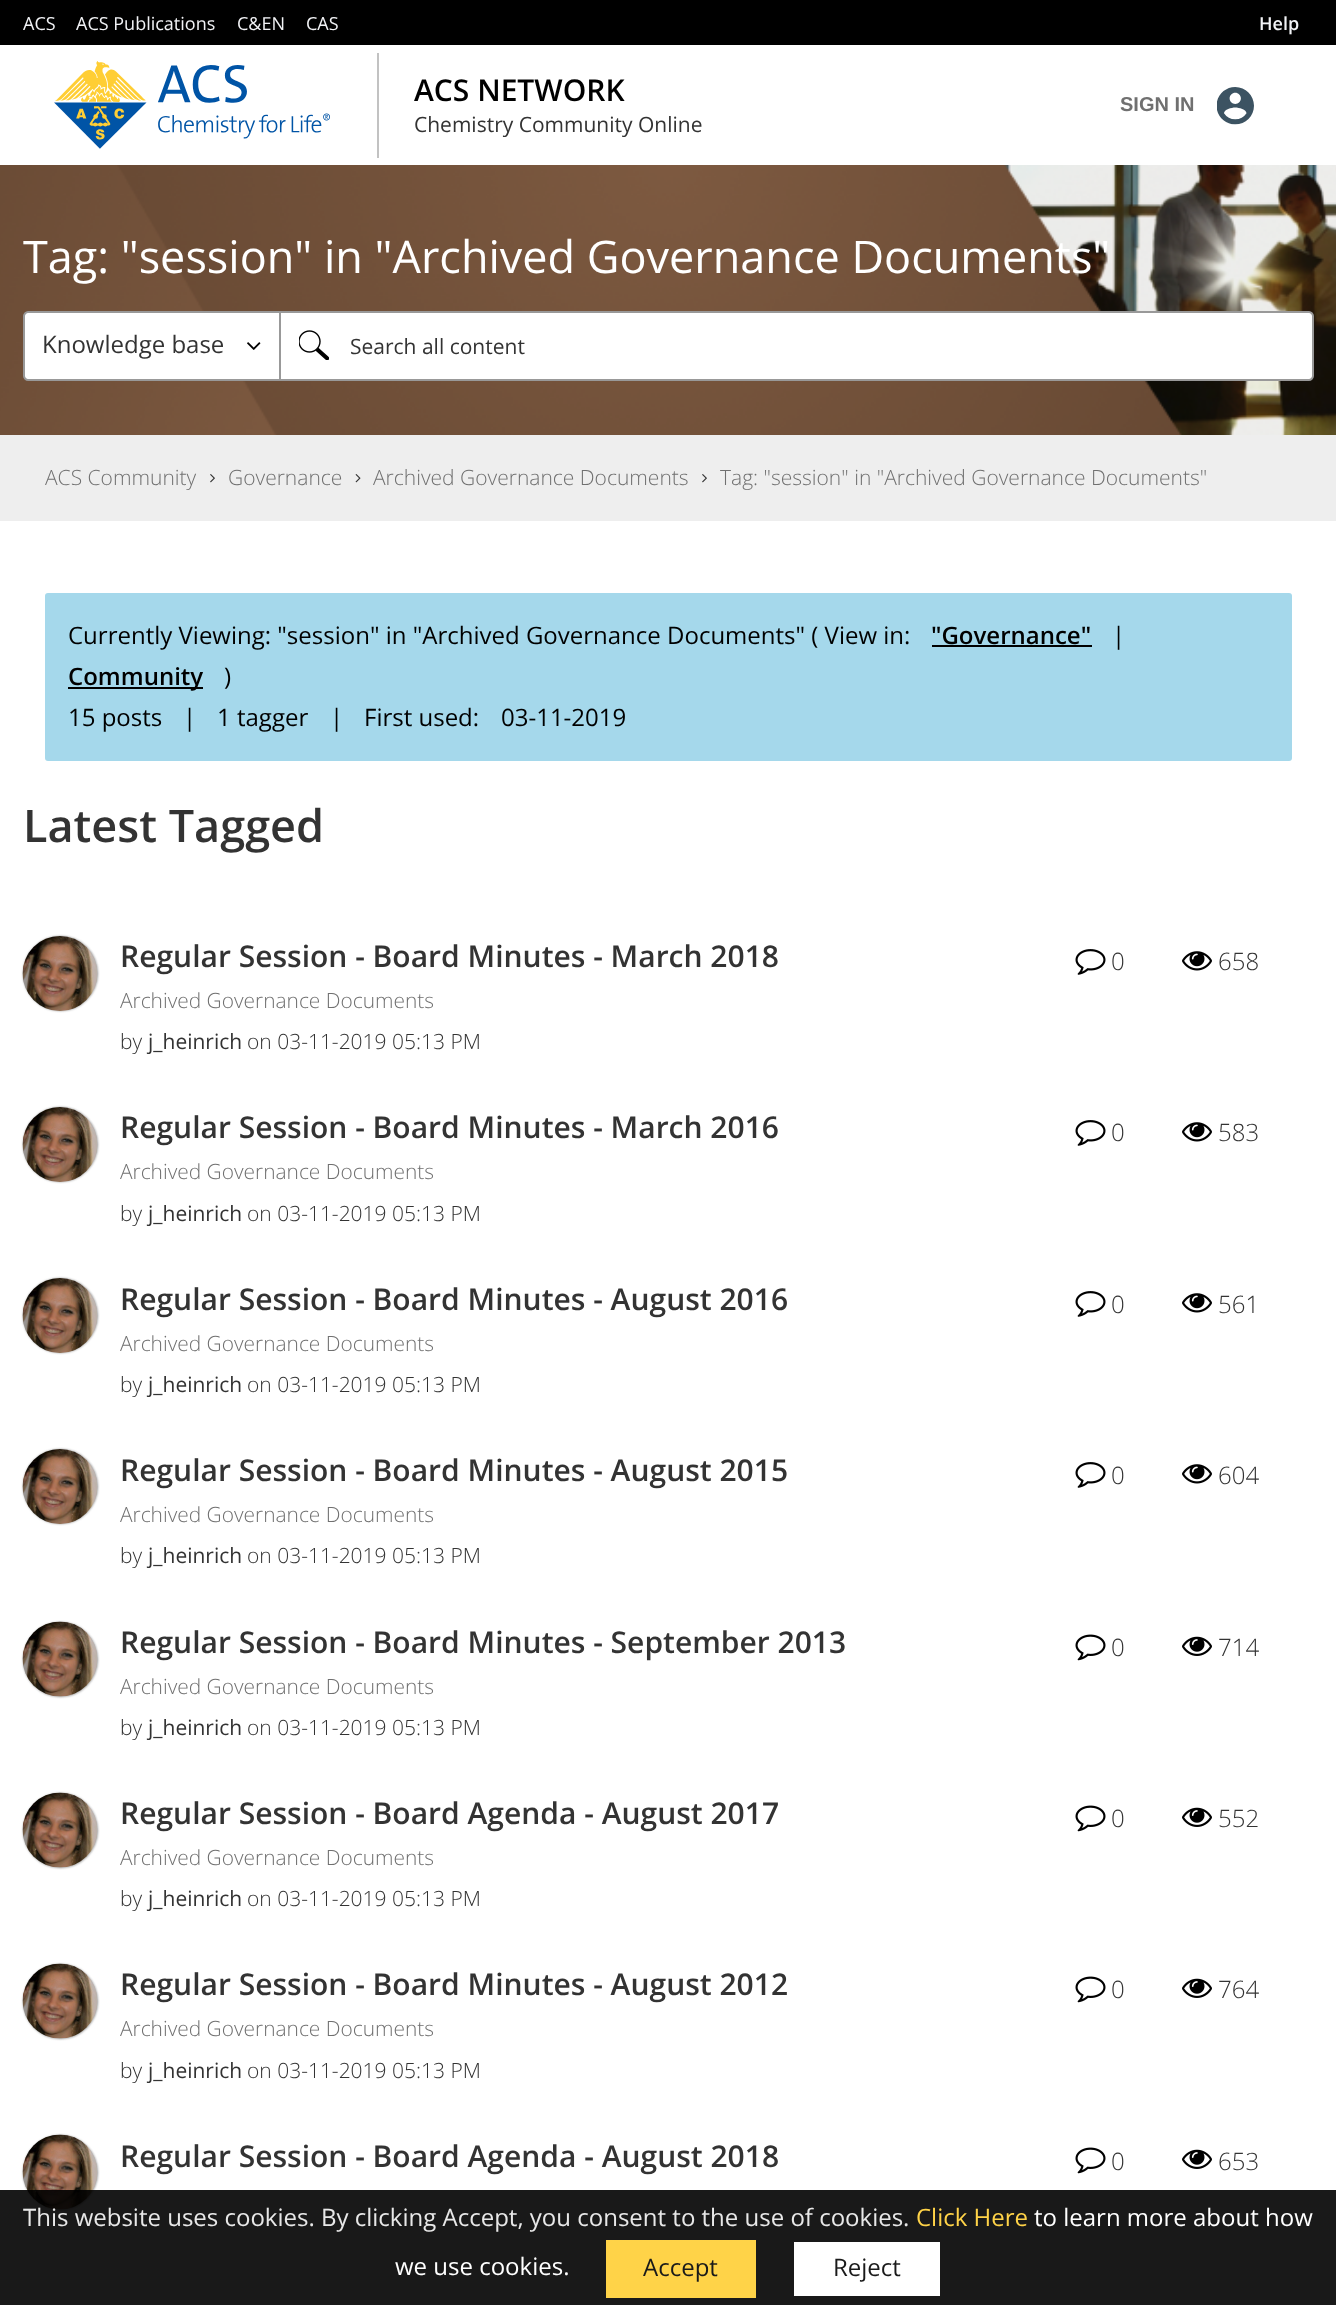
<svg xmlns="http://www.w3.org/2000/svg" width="1336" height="2305">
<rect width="100%" height="100%" fill="#fff"/>
<rect width="1336" height="45" fill="#000"/>
<text x="23" y="30" style="font-family:Open Sans;font-size:18px;fill:#f2f3f6">ACS</text>
<text x="76" y="30" style="font-family:Open Sans;font-size:18px;fill:#f2f3f6">ACS Publications</text>
<text x="237" y="30" style="font-family:Open Sans;font-size:18px;fill:#f2f3f6">C&amp;EN</text>
<text x="306" y="30" style="font-family:Open Sans;font-size:18px;fill:#f2f3f6">CAS</text>
<text x="1259" y="30" style="font-family:Open Sans;font-size:18px;font-weight:600;fill:#f2f3f6">Help</text>
<rect x="377" y="53" width="2" height="105" fill="#c2c2c2"/>
<image x="54" y="61" width="276" height="88" href="media/1.png"/>
<text x="414" y="101" style="font-family:Open Sans;font-size:30px;font-weight:600;fill:#000">ACS NETWORK</text>
<text x="414" y="132" style="font-family:Open Sans;font-size:21px;fill:#333">Chemistry Community Online</text>
<text x="1120" y="111" style="font-family:Liberation Sans;font-size:20px;font-weight:bold;fill:#707070">SIGN IN</text>
<image x="1217" y="87" width="37" height="38" href="media/2.png"/>
<image x="0" y="165" width="1336" height="270" href="media/3.png"/>
<text x="23" y="273" style="font-family:Open Sans;font-size:45px;fill:#fff">Tag: "session" in "Archived Governance Documents"</text>
<path d="M280 312h1029c2 0 4 2 4 4v60c0 2-2 4-4 4h-1029z" fill="#fff" stroke="#999" stroke-width="2"/>
<path d="M28 312h252v68h-252c-2 0-4-2-4-4v-60c0-2 2-4 4-4z" fill="#fff" stroke="#999" stroke-width="2"/>
<text x="42" y="353" style="font-family:Open Sans;font-size:24px;fill:#333">Knowledge base</text>
<image x="247" y="342" width="14" height="8" href="media/4.png"/>
<image x="299" y="330" width="30" height="30" href="media/5.png"/>
<text x="350" y="354" style="font-family:Open Sans;font-size:21px;fill:#333">Search all content</text>
<rect y="435" width="1336" height="86" fill="#eee"/>
<text x="45" y="485" style="font-family:Open Sans;font-size:21px;font-weight:300;fill:#707070">ACS Community</text>
<image x="210" y="474" width="5" height="9" href="media/6.png"/>
<text x="228" y="485" style="font-family:Open Sans;font-size:21px;font-weight:300;fill:#707070">Governance</text>
<image x="355" y="474" width="6" height="9" href="media/7.png"/>
<text x="373" y="485" style="font-family:Open Sans;font-size:21px;font-weight:300;fill:#707070">Archived Governance Documents</text>
<image x="702" y="474" width="5" height="9" href="media/6.png"/>
<text x="720" y="485" style="font-family:Open Sans;font-size:21px;font-weight:300;fill:#707070">Tag: "session" in "Archived Governance Documents"</text>
<rect x="45" y="593" width="1247" height="168" rx="3" fill="#a5d8eb"/>
<text x="68" y="644" style="font-family:Open Sans;font-size:24px;fill:#000">Currently Viewing: "session" in "Archived Governance Documents" ( View in:</text>
<text x="931" y="644" style="font-family:Open Sans;font-size:24px;font-weight:600;fill:#000">"Governance"</text>
<rect x="932" y="645" width="160" height="2" fill="#000"/>
<text x="1112" y="644" style="font-family:Open Sans;font-size:24px;fill:#000">|</text>
<rect x="68" y="687" width="135" height="2" fill="#000"/>
<text x="68" y="685" style="font-family:Open Sans;font-size:24px;font-weight:600;fill:#000">Community</text>
<text x="224" y="685" style="font-family:Open Sans;font-size:24px;fill:#000">)</text>
<text x="68" y="726" style="font-family:Open Sans;font-size:24px;fill:#000">15 posts</text>
<text x="183" y="726" style="font-family:Open Sans;font-size:24px;fill:#000">|</text>
<text x="217" y="726" style="font-family:Open Sans;font-size:24px;fill:#000">1 tagger</text>
<text x="330" y="726" style="font-family:Open Sans;font-size:24px;fill:#000">|</text>
<text x="364" y="726" style="font-family:Open Sans;font-size:24px;fill:#000">First used:</text>
<text x="501" y="726" style="font-family:Open Sans;font-size:24px;fill:#000">03-11-2019</text>
<text x="23" y="842" style="font-family:Open Sans;font-size:45px;font-weight:600;fill:#333">Latest Tagged</text>
<rect x="23" y="936" width="75" height="75" rx="37.5" fill="#999" filter="blur(1px)"/>
<image x="22" y="936" width="76" height="75" href="media/8.png"/>
<text x="120" y="967" style="font-family:Open Sans;font-size:30px;font-weight:600;fill:#333">Regular Session - Board Minutes - March 2018</text>
<text x="120" y="1008" style="font-family:Open Sans;font-size:20.9px;font-weight:300;fill:#707070">Archived Governance Documents</text>
<text x="120" y="1049" style="font-family:Open Sans;font-size:21px;font-weight:300;fill:#333">by</text>
<text x="148" y="1049" style="font-family:Open Sans;font-size:21px;fill:#333">j_heinrich</text>
<text x="247" y="1049" style="font-family:Open Sans;font-size:21px;font-weight:300;fill:#333">on 03-11-2019 05:13 PM</text>
<image x="1075" y="949" width="31" height="26" href="media/9.png"/>
<text x="1111" y="970" style="font-family:Open Sans;font-size:24px;font-weight:300;fill:#333">0</text>
<image x="1182" y="951" width="30" height="20" href="media/10.png"/>
<text x="1218" y="970" style="font-family:Open Sans;font-size:24px;font-weight:300;fill:#333">658</text>
<rect x="23" y="1107" width="75" height="75" rx="37.5" fill="#999" filter="blur(1px)"/>
<image x="22" y="1107" width="76" height="75" href="media/11.png"/>
<text x="120" y="1138" style="font-family:Open Sans;font-size:30px;font-weight:600;fill:#333">Regular Session - Board Minutes - March 2016</text>
<text x="120" y="1179" style="font-family:Open Sans;font-size:20.9px;font-weight:300;fill:#707070">Archived Governance Documents</text>
<text x="120" y="1221" style="font-family:Open Sans;font-size:21px;font-weight:300;fill:#333">by</text>
<text x="148" y="1221" style="font-family:Open Sans;font-size:21px;fill:#333">j_heinrich</text>
<text x="247" y="1221" style="font-family:Open Sans;font-size:21px;font-weight:300;fill:#333">on 03-11-2019 05:13 PM</text>
<image x="1075" y="1120" width="31" height="26" href="media/9.png"/>
<text x="1111" y="1141" style="font-family:Open Sans;font-size:24px;font-weight:300;fill:#333">0</text>
<image x="1182" y="1122" width="30" height="20" href="media/10.png"/>
<text x="1218" y="1141" style="font-family:Open Sans;font-size:24px;font-weight:300;fill:#333">583</text>
<rect x="23" y="1278" width="75" height="75" rx="37.5" fill="#999" filter="blur(1px)"/>
<image x="22" y="1278" width="76" height="75" href="media/8.png"/>
<text x="120" y="1310" style="font-family:Open Sans;font-size:30px;font-weight:600;fill:#333">Regular Session - Board Minutes - August 2016</text>
<text x="120" y="1351" style="font-family:Open Sans;font-size:20.9px;font-weight:300;fill:#707070">Archived Governance Documents</text>
<text x="120" y="1392" style="font-family:Open Sans;font-size:21px;font-weight:300;fill:#333">by</text>
<text x="148" y="1392" style="font-family:Open Sans;font-size:21px;fill:#333">j_heinrich</text>
<text x="247" y="1392" style="font-family:Open Sans;font-size:21px;font-weight:300;fill:#333">on 03-11-2019 05:13 PM</text>
<image x="1075" y="1291" width="31" height="26" href="media/9.png"/>
<text x="1111" y="1313" style="font-family:Open Sans;font-size:24px;font-weight:300;fill:#333">0</text>
<image x="1182" y="1293" width="30" height="20" href="media/10.png"/>
<text x="1218" y="1313" style="font-family:Open Sans;font-size:24px;font-weight:300;fill:#333">561</text>
<rect x="23" y="1449" width="75" height="75" rx="37.5" fill="#999" filter="blur(1px)"/>
<image x="22" y="1449" width="76" height="75" href="media/8.png"/>
<text x="120" y="1481" style="font-family:Open Sans;font-size:30px;font-weight:600;fill:#333">Regular Session - Board Minutes - August 2015</text>
<text x="120" y="1522" style="font-family:Open Sans;font-size:20.9px;font-weight:300;fill:#707070">Archived Governance Documents</text>
<text x="120" y="1563" style="font-family:Open Sans;font-size:21px;font-weight:300;fill:#333">by</text>
<text x="148" y="1563" style="font-family:Open Sans;font-size:21px;fill:#333">j_heinrich</text>
<text x="247" y="1563" style="font-family:Open Sans;font-size:21px;font-weight:300;fill:#333">on 03-11-2019 05:13 PM</text>
<image x="1075" y="1462" width="31" height="26" href="media/9.png"/>
<text x="1111" y="1484" style="font-family:Open Sans;font-size:24px;font-weight:300;fill:#333">0</text>
<image x="1182" y="1464" width="30" height="20" href="media/10.png"/>
<text x="1218" y="1484" style="font-family:Open Sans;font-size:24px;font-weight:300;fill:#333">604</text>
<rect x="23" y="1622" width="75" height="75" rx="37.5" fill="#999" filter="blur(1px)"/>
<image x="22" y="1621" width="76" height="76" href="media/12.png"/>
<text x="120" y="1653" style="font-family:Open Sans;font-size:30px;font-weight:600;fill:#333">Regular Session - Board Minutes - September 2013</text>
<text x="120" y="1694" style="font-family:Open Sans;font-size:20.9px;font-weight:300;fill:#707070">Archived Governance Documents</text>
<text x="120" y="1735" style="font-family:Open Sans;font-size:21px;font-weight:300;fill:#333">by</text>
<text x="148" y="1735" style="font-family:Open Sans;font-size:21px;fill:#333">j_heinrich</text>
<text x="247" y="1735" style="font-family:Open Sans;font-size:21px;font-weight:300;fill:#333">on 03-11-2019 05:13 PM</text>
<image x="1075" y="1634" width="31" height="27" href="media/13.png"/>
<text x="1111" y="1656" style="font-family:Open Sans;font-size:24px;font-weight:300;fill:#333">0</text>
<image x="1182" y="1636" width="30" height="20" href="media/14.png"/>
<text x="1218" y="1656" style="font-family:Open Sans;font-size:24px;font-weight:300;fill:#333">714</text>
<rect x="23" y="1793" width="75" height="75" rx="37.5" fill="#999" filter="blur(1px)"/>
<image x="22" y="1792" width="76" height="76" href="media/12.png"/>
<text x="120" y="1824" style="font-family:Open Sans;font-size:30px;font-weight:600;fill:#333">Regular Session - Board Agenda - August 2017</text>
<text x="120" y="1865" style="font-family:Open Sans;font-size:20.9px;font-weight:300;fill:#707070">Archived Governance Documents</text>
<text x="120" y="1906" style="font-family:Open Sans;font-size:21px;font-weight:300;fill:#333">by</text>
<text x="148" y="1906" style="font-family:Open Sans;font-size:21px;fill:#333">j_heinrich</text>
<text x="247" y="1906" style="font-family:Open Sans;font-size:21px;font-weight:300;fill:#333">on 03-11-2019 05:13 PM</text>
<image x="1075" y="1805" width="31" height="27" href="media/13.png"/>
<text x="1111" y="1827" style="font-family:Open Sans;font-size:24px;font-weight:300;fill:#333">0</text>
<image x="1182" y="1807" width="30" height="20" href="media/14.png"/>
<text x="1218" y="1827" style="font-family:Open Sans;font-size:24px;font-weight:300;fill:#333">552</text>
<rect x="23" y="1964" width="75" height="75" rx="37.5" fill="#999" filter="blur(1px)"/>
<image x="22" y="1963" width="76" height="76" href="media/15.png"/>
<text x="120" y="1995" style="font-family:Open Sans;font-size:30px;font-weight:600;fill:#333">Regular Session - Board Minutes - August 2012</text>
<text x="120" y="2036" style="font-family:Open Sans;font-size:20.9px;font-weight:300;fill:#707070">Archived Governance Documents</text>
<text x="120" y="2078" style="font-family:Open Sans;font-size:21px;font-weight:300;fill:#333">by</text>
<text x="148" y="2078" style="font-family:Open Sans;font-size:21px;fill:#333">j_heinrich</text>
<text x="247" y="2078" style="font-family:Open Sans;font-size:21px;font-weight:300;fill:#333">on 03-11-2019 05:13 PM</text>
<image x="1075" y="1976" width="31" height="27" href="media/13.png"/>
<text x="1111" y="1998" style="font-family:Open Sans;font-size:24px;font-weight:300;fill:#333">0</text>
<image x="1182" y="1978" width="30" height="20" href="media/14.png"/>
<text x="1218" y="1998" style="font-family:Open Sans;font-size:24px;font-weight:300;fill:#333">764</text>
<rect x="23" y="2135" width="75" height="75" rx="37.5" fill="#999" filter="blur(1px)"/>
<image x="22" y="2134" width="76" height="76" href="media/12.png"/>
<text x="120" y="2167" style="font-family:Open Sans;font-size:30px;font-weight:600;fill:#333">Regular Session - Board Agenda - August 2018</text>
<image x="1075" y="2147" width="31" height="27" href="media/13.png"/>
<text x="1111" y="2170" style="font-family:Open Sans;font-size:24px;font-weight:300;fill:#333">0</text>
<image x="1182" y="2149" width="30" height="20" href="media/14.png"/>
<text x="1218" y="2170" style="font-family:Open Sans;font-size:24px;font-weight:300;fill:#333">653</text>
<rect y="2190" width="1336" height="115" fill="#000000e6"/>
<text x="23" y="2226" style="font-family:Open Sans;font-size:24px;fill:#e8e8e8">This website uses cookies. By clicking Accept, you consent to the use of cookies.</text>
<text x="916" y="2226" style="font-family:Open Sans;font-size:24px;fill:#ffd348">Click Here</text>
<text x="1034" y="2226" style="font-family:Open Sans;font-size:24px;fill:#fff">to learn more about how</text>
<text x="395" y="2275" style="font-family:Open Sans;font-size:24px;fill:#fff">we use cookies.</text>
<rect x="606" y="2240" width="150" height="58" fill="#ffd348"/>
<text x="643" y="2276" style="font-family:Open Sans;font-size:24px;fill:#1a1a1a">Accept</text>
<rect x="794" y="2242" width="146" height="54" fill="#fff"/>
<text x="833" y="2276" style="font-family:Open Sans;font-size:24px;fill:#1a1a1a">Reject</text>
</svg>
